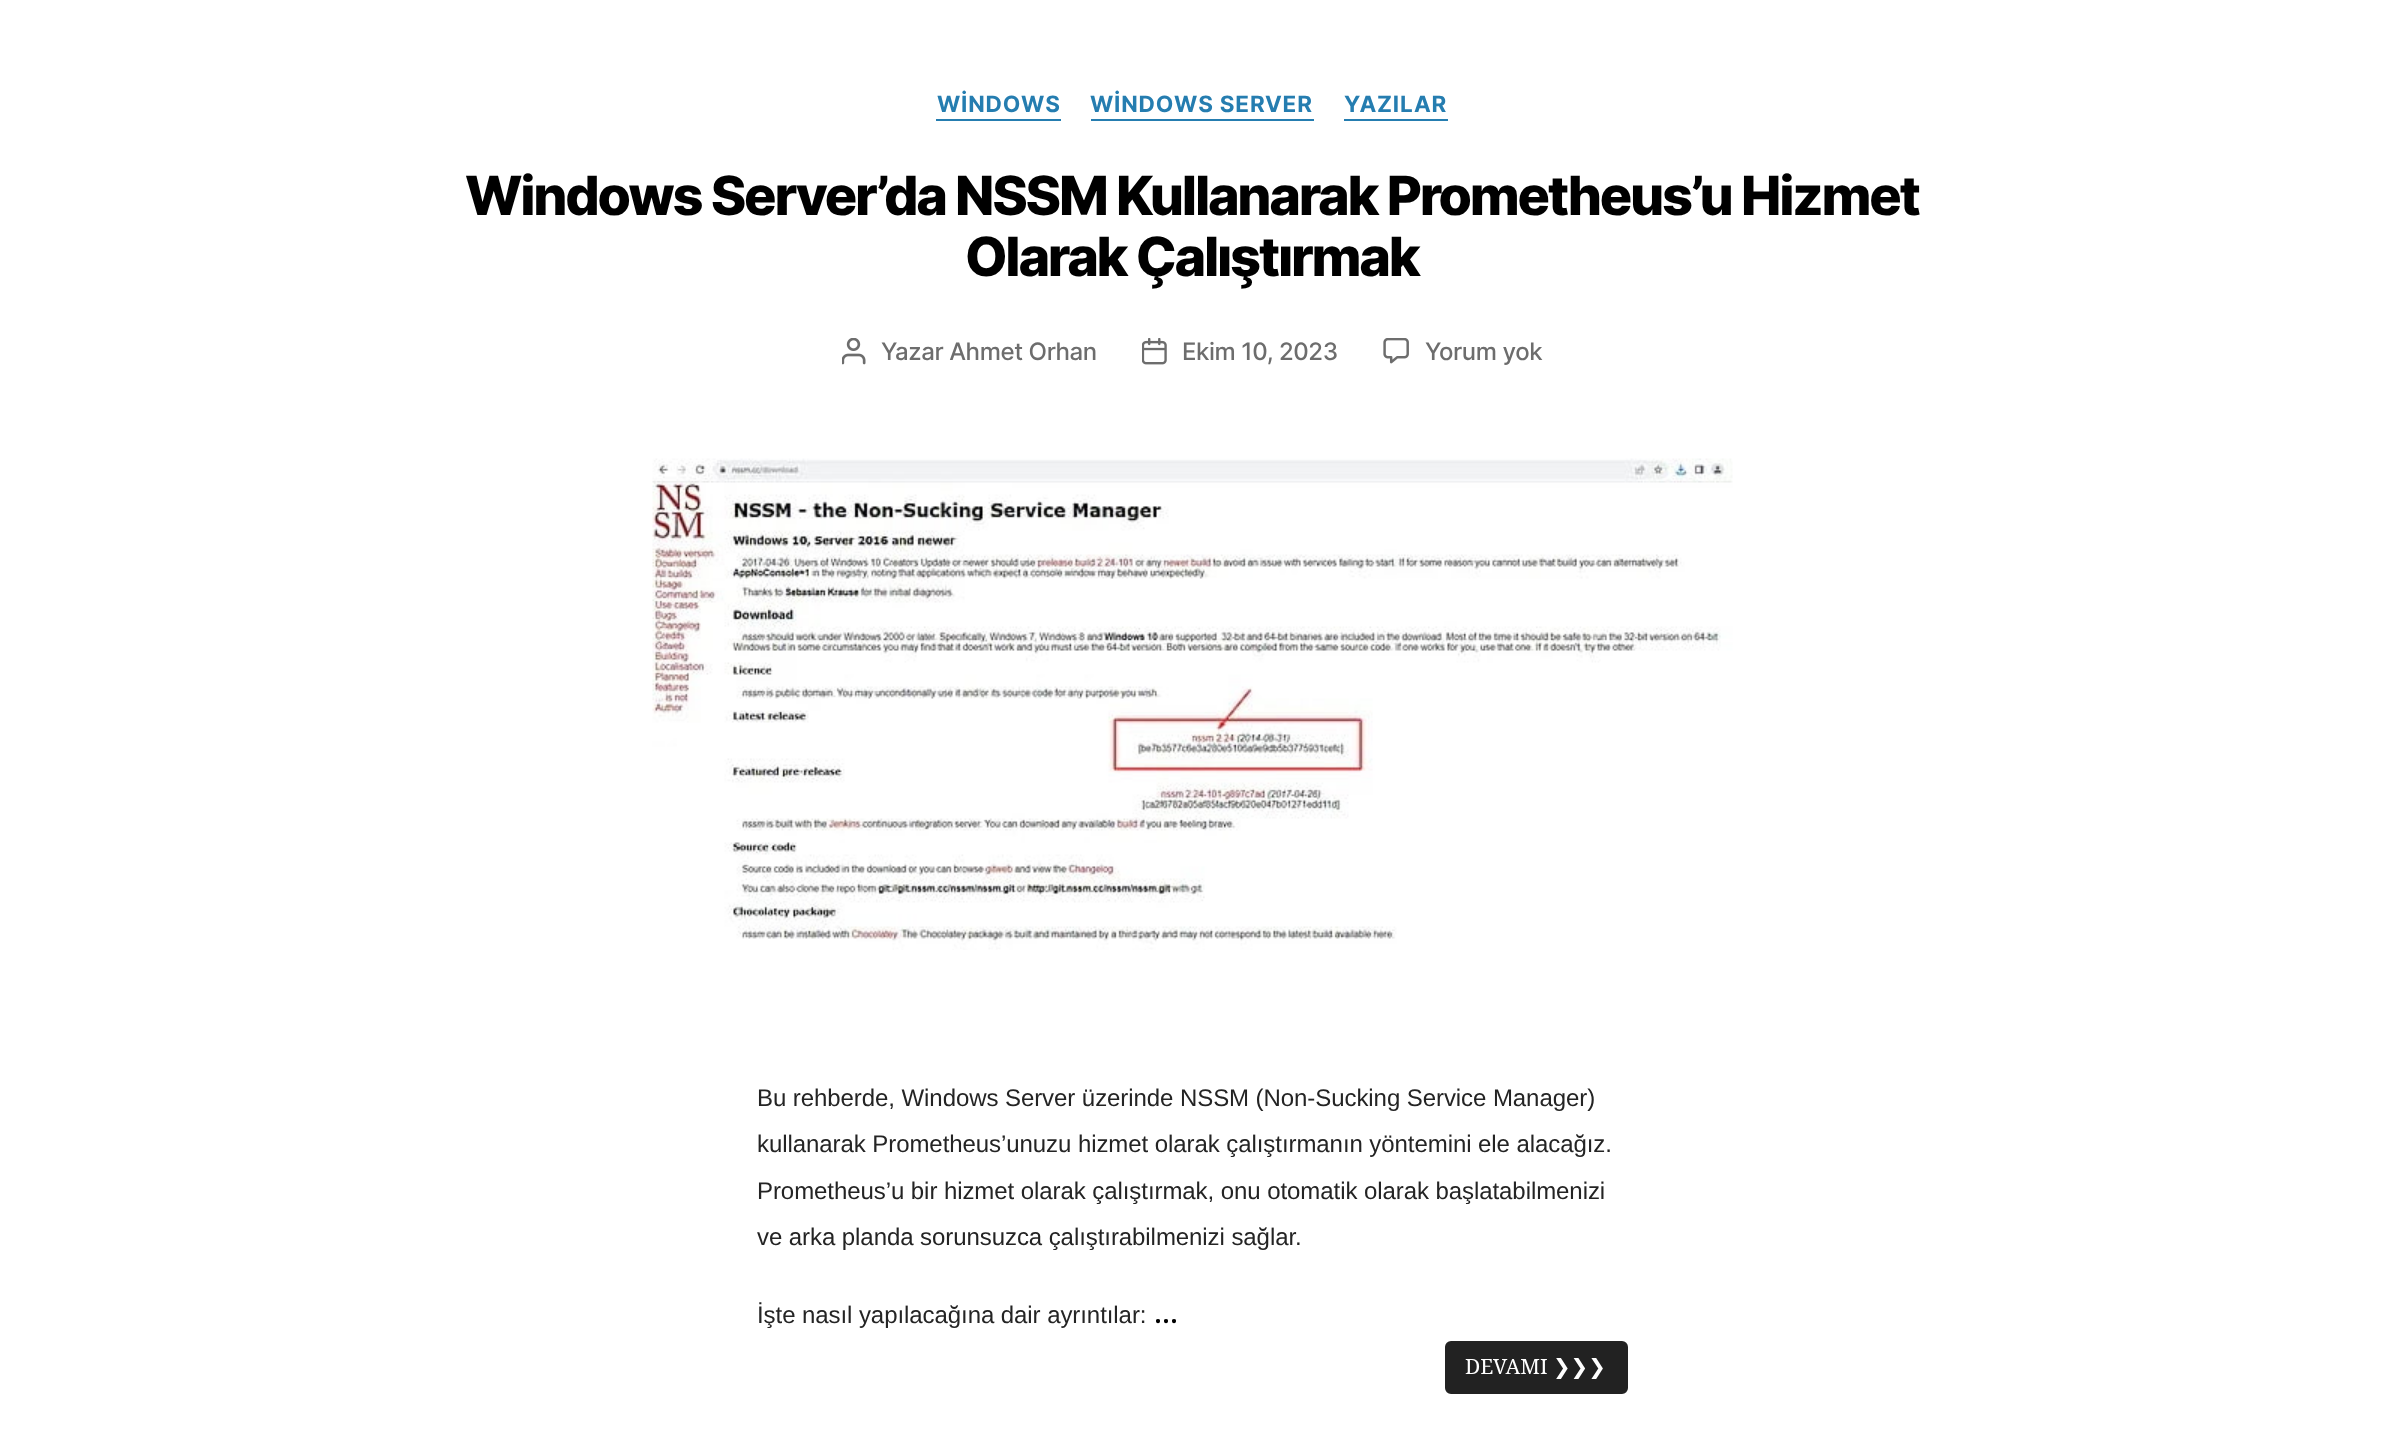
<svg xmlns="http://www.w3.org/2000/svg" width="2383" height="1453">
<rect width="100%" height="100%" fill="#fff"/>
<rect x="936" y="119" width="125" height="2" fill="#257db0"/>
<text x="937" y="112" style="font-family:Inter;font-size:22.5px;font-weight:bold;letter-spacing:0.8px;fill:#257db0">WİNDOWS</text>
<rect x="1091" y="119" width="223" height="2" fill="#257db0"/>
<text x="1090" y="112" style="font-family:Inter;font-size:22.5px;font-weight:bold;letter-spacing:0.8px;fill:#257db0">WİNDOWS SERVER</text>
<rect x="1344" y="119" width="104" height="2" fill="#257db0"/>
<text x="1344" y="112" style="font-family:Inter;font-size:22.5px;font-weight:bold;letter-spacing:0.8px;fill:#257db0">YAZILAR</text>
<text x="465" y="215" style="font-family:Inter;font-size:54px;font-weight:800;letter-spacing:-2.25px;fill:#000">Windows Server’da NSSM Kullanarak Prometheus’u Hizmet</text>
<text x="965" y="276" style="font-family:Inter;font-size:54px;font-weight:800;letter-spacing:-2.25px;fill:#000">Olarak Çalıştırmak</text>
<image x="842" y="338" width="24" height="27" href="media/1.png"/>
<text x="881" y="360" style="font-family:Inter;font-size:24px;font-weight:500;letter-spacing:-0.4px;fill:#6d6d6d">Yazar Ahmet Orhan</text>
<image x="1142" y="338" width="25" height="27" href="media/2.png"/>
<text x="1182" y="360" style="font-family:Inter;font-size:24px;font-weight:500;letter-spacing:-0.4px;fill:#6d6d6d">Ekim 10, 2023</text>
<image x="1383" y="338" width="26" height="26" href="media/3.png"/>
<text x="1425" y="360" style="font-family:Inter;font-size:24px;font-weight:500;letter-spacing:-0.4px;fill:#6d6d6d">Yorum yok</text>
<image x="652" y="458" width="1081" height="492" href="media/4.png"/>
<text x="757" y="1106" style="font-family:Liberation Sans;font-size:24px;letter-spacing:-0.07px;fill:#242424">Bu rehberde, Windows Server üzerinde NSSM (Non-Sucking Service Manager)</text>
<text x="757" y="1152" style="font-family:Liberation Sans;font-size:24px;letter-spacing:-0.07px;fill:#242424">kullanarak Prometheus’unuzu hizmet olarak çalıştırmanın yöntemini ele alacağız.</text>
<text x="757" y="1199" style="font-family:Liberation Sans;font-size:24px;letter-spacing:-0.07px;fill:#242424">Prometheus’u bir hizmet olarak çalıştırmak, onu otomatik olarak başlatabilmenizi</text>
<text x="757" y="1245" style="font-family:Liberation Sans;font-size:24px;letter-spacing:-0.07px;fill:#242424">ve arka planda sorunsuzca çalıştırabilmenizi sağlar.</text>
<text x="757" y="1323" style="font-family:Liberation Sans;font-size:24px;letter-spacing:-0.07px;fill:#242424">İşte nasıl yapılacağına dair ayrıntılar:</text>
<text x="1154" y="1323" style="font-family:Noto Serif;font-size:32px;fill:#000">...</text>
<rect x="1446.5" y="1342.5" width="180" height="50" rx="4.5" fill="#222" stroke="#222" stroke-width="3"/>
<text x="1465" y="1374" style="font-family:Noto Serif;font-size:21px;fill:#fff">DEVAMI</text>
<text x="1553" y="1374" style="font-family:DejaVu Sans;font-size:21px;fill:#fff">❯❯❯</text>
</svg>
